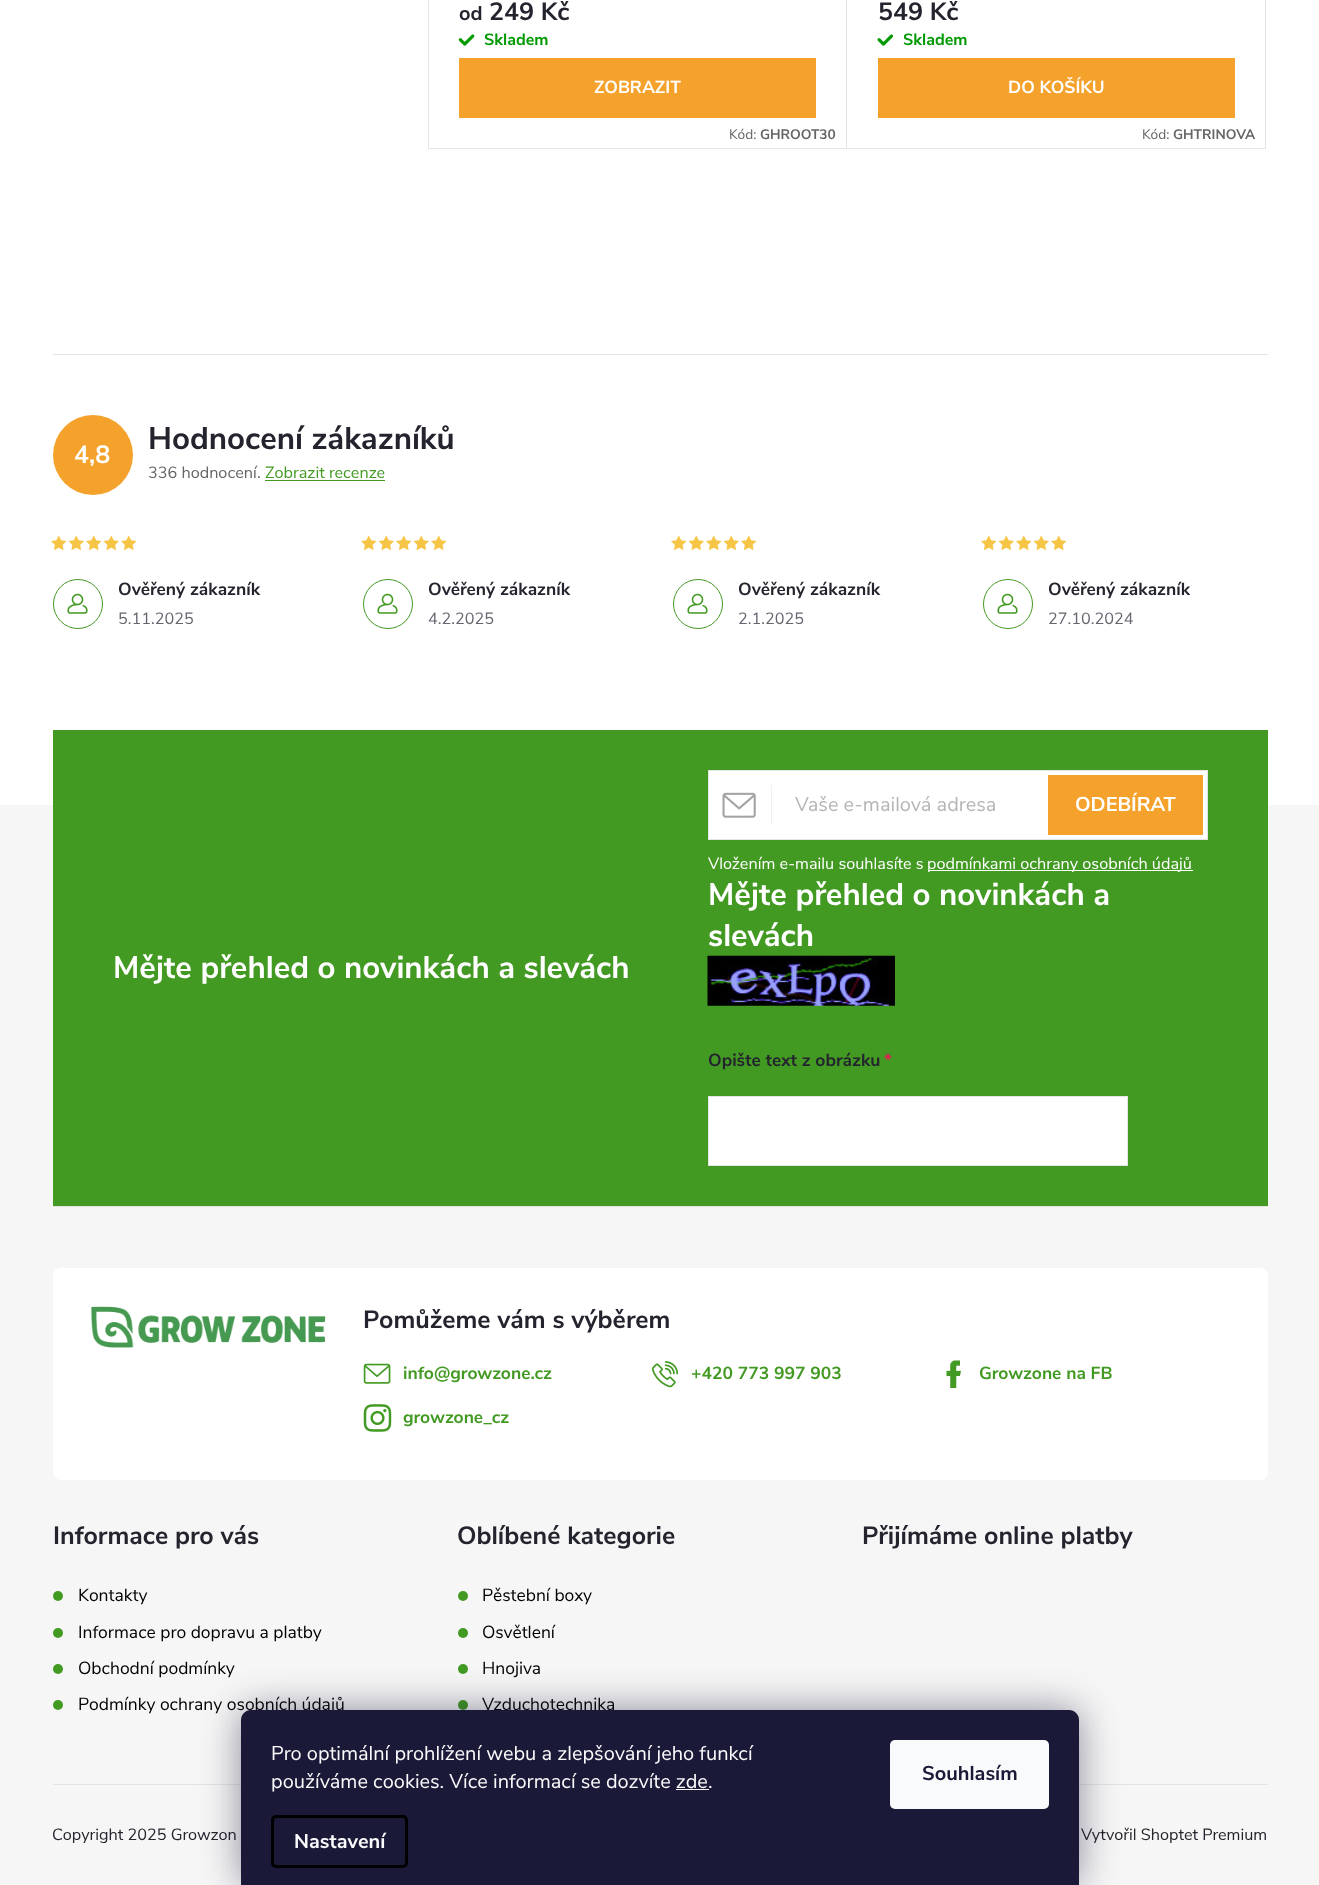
<svg xmlns="http://www.w3.org/2000/svg" width="1319" height="1885">
<rect width="100%" height="100%" fill="#fff"/>
<rect x="428.5" y="-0.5" width="837" height="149" fill="none" stroke="#e4e4e4"/>
<rect x="846" width="1" height="148" fill="#e4e4e4"/>
<text x="459" y="20" style="font-family:Nunito Sans;font-size:20px;font-weight:bold;fill:#24242e">od</text>
<text x="489" y="20" style="font-family:Nunito Sans;font-size:25px;font-weight:bold;fill:#24242e">249 Kč</text>
<image x="458" y="34" width="17" height="12" href="media/1.png"/>
<text x="484" y="45" style="font-family:Nunito Sans;font-size:16.25px;font-weight:bold;fill:#009901">Skladem</text>
<rect x="459" y="58" width="357" height="60" fill="#f4a22c"/>
<text x="594" y="93" style="font-family:Nunito Sans;font-size:17.5px;font-weight:bold;fill:#fff">ZOBRAZIT</text>
<text x="729" y="139" style="font-family:Nunito Sans;font-size:13.75px;fill:#656565">Kód:</text>
<text x="760" y="139" style="font-family:Nunito Sans;font-size:13.75px;font-weight:bold;fill:#656565">GHROOT30</text>
<text x="878" y="20" style="font-family:Nunito Sans;font-size:25px;font-weight:bold;fill:#24242e">549 Kč</text>
<image x="877" y="34" width="17" height="12" href="media/2.png"/>
<text x="903" y="45" style="font-family:Nunito Sans;font-size:16.25px;font-weight:bold;fill:#009901">Skladem</text>
<rect x="878" y="58" width="357" height="60" fill="#f4a22c"/>
<text x="1008" y="93" style="font-family:Nunito Sans;font-size:17.5px;font-weight:bold;fill:#fff">DO KOŠÍKU</text>
<text x="1142" y="139" style="font-family:Nunito Sans;font-size:13.75px;fill:#656565">Kód:</text>
<text x="1173" y="139" style="font-family:Nunito Sans;font-size:13.75px;font-weight:bold;fill:#656565">GHTRINOVA</text>
<rect x="53" y="354" width="1215" height="1" fill="#e4e4e4"/>
<circle cx="93" cy="455" r="40" fill="#f4a22c"/>
<text x="74" y="463" style="font-family:Nunito Sans;font-size:25px;font-weight:bold;fill:#fff">4,8</text>
<text x="148" y="449" style="font-family:Nunito Sans;font-size:31.25px;font-weight:bold;fill:#24242e">Hodnocení zákazníků</text>
<text x="148" y="478" style="font-family:Nunito Sans;font-size:16.25px;fill:#656565">336 hodnocení</text>
<text x="257" y="478" style="font-family:Nunito Sans;font-size:16.25px;fill:#656565">.</text>
<text x="265" y="478" style="font-family:Nunito Sans;font-size:16.25px;fill:#439a23">Zobrazit recenze</text>
<rect x="265" y="480" width="120" height="1" fill="#439a23"/>
<circle cx="78" cy="604" r="24.5" fill="none" stroke="#439a23"/>
<image x="67" y="593" width="21" height="21" href="media/3.png"/>
<text x="118" y="595" style="font-family:Nunito Sans;font-size:17.5px;font-weight:bold;fill:#24242e">Ověřený zákazník</text>
<image x="51" y="535" width="16" height="16" href="media/4.png"/>
<image x="68" y="535" width="16" height="16" href="media/5.png"/>
<image x="86" y="535" width="16" height="16" href="media/4.png"/>
<image x="103" y="535" width="16" height="16" href="media/5.png"/>
<image x="121" y="535" width="16" height="16" href="media/4.png"/>
<text x="118" y="624" style="font-family:Nunito Sans;font-size:16.25px;fill:#656570">5.11.2025</text>
<circle cx="388" cy="604" r="24.5" fill="none" stroke="#439a23"/>
<image x="377" y="593" width="21" height="21" href="media/3.png"/>
<text x="428" y="595" style="font-family:Nunito Sans;font-size:17.5px;font-weight:bold;fill:#24242e">Ověřený zákazník</text>
<image x="361" y="535" width="16" height="16" href="media/4.png"/>
<image x="378" y="535" width="16" height="16" href="media/5.png"/>
<image x="396" y="535" width="16" height="16" href="media/4.png"/>
<image x="413" y="535" width="16" height="16" href="media/5.png"/>
<image x="431" y="535" width="16" height="16" href="media/4.png"/>
<text x="428" y="624" style="font-family:Nunito Sans;font-size:16.25px;fill:#656570">4.2.2025</text>
<circle cx="698" cy="604" r="24.5" fill="none" stroke="#439a23"/>
<image x="687" y="593" width="21" height="21" href="media/3.png"/>
<text x="738" y="595" style="font-family:Nunito Sans;font-size:17.5px;font-weight:bold;fill:#24242e">Ověřený zákazník</text>
<image x="671" y="535" width="16" height="16" href="media/4.png"/>
<image x="688" y="535" width="16" height="16" href="media/5.png"/>
<image x="706" y="535" width="16" height="16" href="media/4.png"/>
<image x="723" y="535" width="16" height="16" href="media/5.png"/>
<image x="741" y="535" width="16" height="16" href="media/4.png"/>
<text x="738" y="624" style="font-family:Nunito Sans;font-size:16.25px;fill:#656570">2.1.2025</text>
<circle cx="1008" cy="604" r="24.5" fill="none" stroke="#439a23"/>
<image x="997" y="593" width="21" height="21" href="media/3.png"/>
<text x="1048" y="595" style="font-family:Nunito Sans;font-size:17.5px;font-weight:bold;fill:#24242e">Ověřený zákazník</text>
<image x="981" y="535" width="16" height="16" href="media/4.png"/>
<image x="998" y="535" width="16" height="16" href="media/5.png"/>
<image x="1016" y="535" width="16" height="16" href="media/4.png"/>
<image x="1033" y="535" width="16" height="16" href="media/5.png"/>
<image x="1051" y="535" width="16" height="16" href="media/4.png"/>
<text x="1048" y="624" style="font-family:Nunito Sans;font-size:16.25px;fill:#656570">27.10.2024</text>
<rect y="805" width="1319" height="1080" fill="#f6f6f6"/>
<rect x="53" y="730" width="1215" height="476" fill="#439a23"/>
<text x="113" y="978" style="font-family:Nunito Sans;font-size:31.25px;font-weight:bold;fill:#fff">Mějte přehled o novinkách a slevách</text>
<rect x="708.5" y="770.5" width="499" height="69" fill="#fff" stroke="#e4e4e4"/>
<rect x="771" y="785" width="1" height="40" fill="#f1f1f1"/>
<image x="722" y="792" width="34" height="26" href="media/6.png"/>
<text x="795" y="811" style="font-family:Nunito Sans;font-size:20px;fill:#b6b6b6">Vaše e-mailová adresa</text>
<rect x="1048" y="775" width="155" height="60" fill="#f4a22c"/>
<text x="1075" y="811" style="font-family:Nunito Sans;font-size:20px;font-weight:bold;fill:#fff">ODEBÍRAT</text>
<text x="708" y="869" style="font-family:Nunito Sans;font-size:16.25px;fill:#fff">Vložením e-mailu souhlasíte s</text>
<rect x="928" y="870" width="265" height="1" fill="#fff"/>
<text x="927" y="869" style="font-family:Nunito Sans;font-size:16.25px;fill:#fff">podmínkami ochrany osobních údajů</text>
<text x="708" y="905" style="font-family:Nunito Sans;font-size:31.25px;font-weight:bold;fill:#fff">Mějte přehled o novinkách a</text>
<text x="708" y="946" style="font-family:Nunito Sans;font-size:31.25px;font-weight:bold;fill:#fff">slevách</text>
<image x="707" y="955" width="188" height="51" href="media/7.png"/>
<text x="708" y="1066" style="font-family:Nunito Sans;font-size:17.5px;font-weight:bold;fill:#24242e">Opište text z obrázku</text>
<text x="884" y="1066" style="font-family:Nunito Sans;font-size:17.5px;font-weight:bold;fill:#e31e53">*</text>
<rect x="708.5" y="1096.5" width="419" height="69" fill="#fff" stroke="#e4e4e4"/>
<rect x="53" y="1206" width="1215" height="1" fill="#e4e4e4"/>
<rect x="53" y="1268" width="1215" height="212" rx="8" fill="#fff"/>
<image x="90" y="1306" width="236" height="42" href="media/8.png"/>
<text x="363" y="1328" style="font-family:Nunito Sans;font-size:25px;font-weight:bold;fill:#24242e">Pomůžeme vám s výběrem</text>
<image x="363" y="1363" width="28" height="21" href="media/9.png"/>
<text x="403" y="1379" style="font-family:Nunito Sans;font-size:17.5px;font-weight:bold;fill:#439a23">info@growzone.cz</text>
<image x="651" y="1361" width="28" height="27" href="media/10.png"/>
<text x="691" y="1379" style="font-family:Nunito Sans;font-size:17.5px;font-weight:bold;fill:#439a23">+420 773 997 903</text>
<image x="946" y="1360" width="15" height="28" href="media/11.png"/>
<text x="979" y="1379" style="font-family:Nunito Sans;font-size:17.5px;font-weight:bold;fill:#439a23">Growzone na FB</text>
<image x="363" y="1404" width="29" height="28" href="media/12.png"/>
<text x="403" y="1423" style="font-family:Nunito Sans;font-size:17.5px;font-weight:bold;fill:#439a23">growzone_cz</text>
<text x="53" y="1544" style="font-family:Nunito Sans;font-size:25px;font-weight:bold;fill:#24242e">Informace pro vás</text>
<circle cx="58" cy="1596" r="5" fill="#439a23"/>
<text x="78" y="1601" style="font-family:Nunito Sans;font-size:17.5px;fill:#000">Kontakty</text>
<circle cx="58" cy="1633" r="5" fill="#439a23"/>
<text x="78" y="1638" style="font-family:Nunito Sans;font-size:17.5px;fill:#000">Informace pro dopravu a platby</text>
<circle cx="58" cy="1669" r="5" fill="#439a23"/>
<text x="78" y="1674" style="font-family:Nunito Sans;font-size:17.5px;fill:#000">Obchodní podmínky</text>
<circle cx="58" cy="1705" r="5" fill="#439a23"/>
<text x="78" y="1710" style="font-family:Nunito Sans;font-size:17.5px;fill:#000">Podmínky ochrany osobních údajů</text>
<text x="457" y="1544" style="font-family:Nunito Sans;font-size:25px;font-weight:bold;fill:#24242e">Oblíbené kategorie</text>
<circle cx="463" cy="1596" r="5" fill="#439a23"/>
<text x="482" y="1601" style="font-family:Nunito Sans;font-size:17.5px;fill:#000">Pěstební boxy</text>
<circle cx="463" cy="1633" r="5" fill="#439a23"/>
<text x="482" y="1638" style="font-family:Nunito Sans;font-size:17.5px;fill:#000">Osvětlení</text>
<circle cx="463" cy="1669" r="5" fill="#439a23"/>
<text x="482" y="1674" style="font-family:Nunito Sans;font-size:17.5px;fill:#000">Hnojiva</text>
<circle cx="463" cy="1705" r="5" fill="#439a23"/>
<text x="482" y="1710" style="font-family:Nunito Sans;font-size:17.5px;fill:#000">Vzduchotechnika</text>
<text x="862" y="1544" style="font-family:Nunito Sans;font-size:25px;font-weight:bold;fill:#24242e">Přijímáme online platby</text>
<rect x="53" y="1784" width="1215" height="1" fill="#e4e4e4"/>
<text x="52" y="1840" style="font-family:Nunito Sans;font-size:16.25px;fill:#24242e">Copyright 2025 Growzon</text>
<text x="1081" y="1840" style="font-family:Nunito Sans;font-size:16.25px;fill:#24242e">Vytvořil Shoptet Premium</text>
<rect x="241" y="1710" width="838" height="175" rx="10" fill="#1b193980" filter="blur(19px)"/>
<path d="M251 1710h818c5.5 0 10 4.5 10 10v165h-838v-165c0-5.5 4.5-10 10-10z" fill="#1a1937"/>
<text x="271" y="1760" style="font-family:Nunito Sans;font-size:20px;fill:#f8fafb">Pro optimální prohlížení webu a zlepšování jeho funkcí</text>
<text x="271" y="1788" style="font-family:Nunito Sans;font-size:20px;fill:#f8fafb">používáme cookies. Více informací se dozvíte zde.</text>
<rect x="676" y="1789" width="33" height="1" fill="#f8fafb"/>
<rect x="272.5" y="1816.5" width="134" height="50" rx="3.5" fill="none" stroke="#000" stroke-width="3"/>
<text x="294" y="1848" style="font-family:Nunito Sans;font-size:20px;font-weight:bold;fill:#f8fafb">Nastavení</text>
<rect x="890" y="1740" width="159" height="69" rx="5" fill="#f8fafb"/>
<text x="922" y="1780" style="font-family:Nunito Sans;font-size:20px;font-weight:bold;fill:#1a1937">Souhlasím</text>
</svg>
